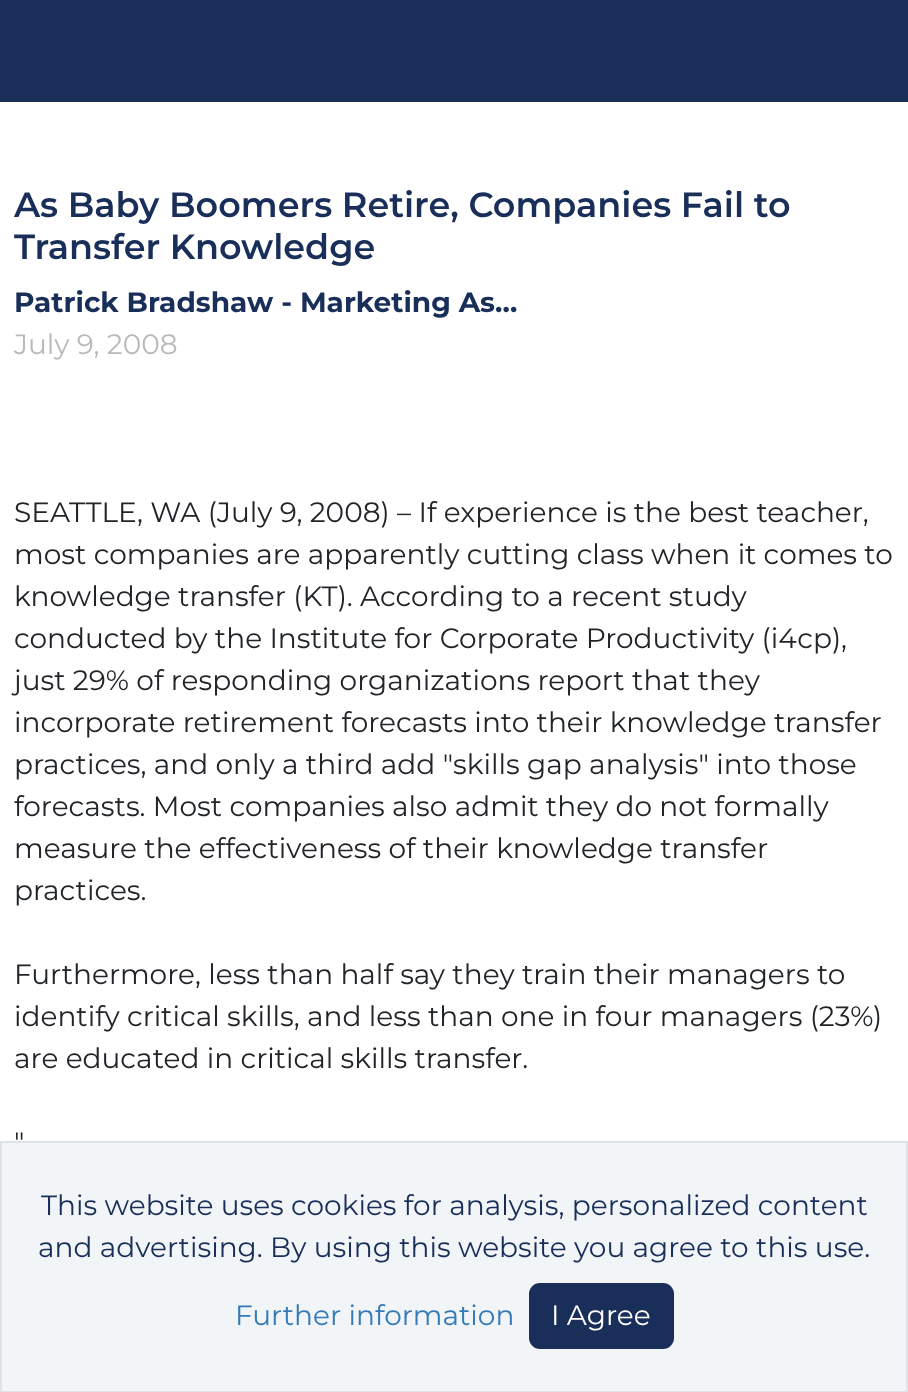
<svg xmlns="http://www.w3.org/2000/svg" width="908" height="1392">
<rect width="100%" height="100%" fill="#fff"/>
<rect width="908" height="102" fill="#192e59"/>
<text x="14" y="217" style="font-family:Montserrat;font-size:35px;font-weight:600;fill:#192e59">As Baby Boomers Retire, Companies Fail to</text>
<text x="14" y="259" style="font-family:Montserrat;font-size:35px;font-weight:600;fill:#192e59">Transfer Knowledge</text>
<text x="14" y="312" style="font-family:Montserrat;font-size:28px;font-weight:bold;fill:#192e59">Patrick Bradshaw - Marketing As…</text>
<text x="14" y="354" style="font-family:Montserrat;font-size:28px;fill:#b9b9b9">July 9, 2008</text>
<text x="14" y="522" style="font-family:Montserrat;font-size:28px;fill:#212529">SEATTLE, WA (July 9, 2008) – If experience is the best teacher,</text>
<text x="14" y="564" style="font-family:Montserrat;font-size:28px;fill:#212529">most companies are apparently cutting class when it comes to</text>
<text x="14" y="606" style="font-family:Montserrat;font-size:28px;fill:#212529">knowledge transfer (KT). According to a recent study</text>
<text x="14" y="648" style="font-family:Montserrat;font-size:28px;fill:#212529">conducted by the Institute for Corporate Productivity (i4cp),</text>
<text x="14" y="690" style="font-family:Montserrat;font-size:28px;fill:#212529">just 29% of responding organizations report that they</text>
<text x="14" y="732" style="font-family:Montserrat;font-size:28px;fill:#212529">incorporate retirement forecasts into their knowledge transfer</text>
<text x="14" y="774" style="font-family:Montserrat;font-size:28px;fill:#212529">practices, and only a third add "skills gap analysis" into those</text>
<text x="14" y="816" style="font-family:Montserrat;font-size:28px;fill:#212529">forecasts. Most companies also admit they do not formally</text>
<text x="14" y="858" style="font-family:Montserrat;font-size:28px;fill:#212529">measure the effectiveness of their knowledge transfer</text>
<text x="14" y="900" style="font-family:Montserrat;font-size:28px;fill:#212529">practices.</text>
<text x="14" y="984" style="font-family:Montserrat;font-size:28px;fill:#212529">Furthermore, less than half say they train their managers to</text>
<text x="14" y="1026" style="font-family:Montserrat;font-size:28px;fill:#212529">identify critical skills, and less than one in four managers (23%)</text>
<text x="14" y="1068" style="font-family:Montserrat;font-size:28px;fill:#212529">are educated in critical skills transfer.</text>
<text x="14" y="1152" style="font-family:Montserrat;font-size:28px;fill:#212529">"</text>
<rect x="1" y="1142" width="906" height="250" fill="#f2f5f7" stroke="#dee2e6" stroke-width="2"/>
<text x="41" y="1215" style="font-family:Montserrat;font-size:28px;fill:#192e59">This website uses cookies for analysis, personalized content</text>
<text x="38" y="1257" style="font-family:Montserrat;font-size:28px;fill:#192e59">and advertising. By using this website you agree to this use.</text>
<text x="235" y="1325" style="font-family:Montserrat;font-size:28px;fill:#337ab7">Further information</text>
<rect x="529" y="1283" width="145" height="66" rx="11" fill="#192e59"/>
<text x="551" y="1325" style="font-family:Montserrat;font-size:28px;fill:#fff">I Agree</text>
</svg>
